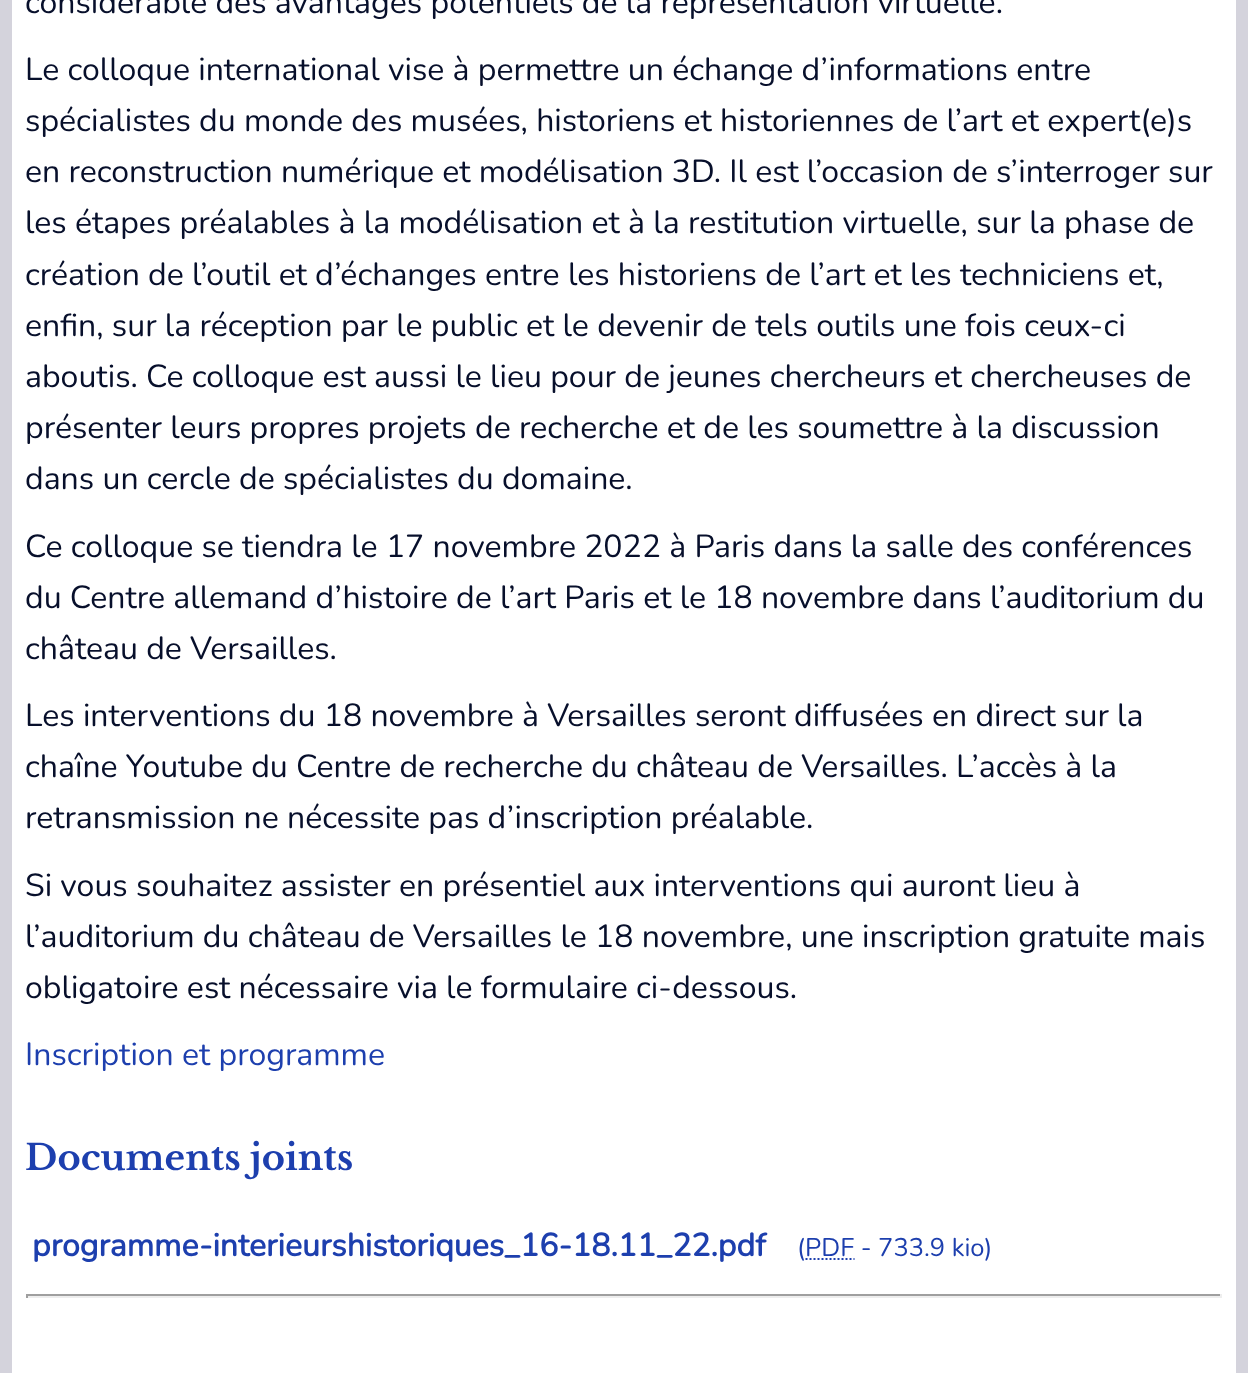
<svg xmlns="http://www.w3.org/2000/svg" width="1248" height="1373">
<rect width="100%" height="100%" fill="#d4d3dc"/>
<rect x="12" width="1224" height="1373" fill="#fff"/>
<text x="25" y="13" style="font-family:Nunito;font-size:32px;fill:#070f2b">considérable des avantages potentiels de la représentation virtuelle.</text>
<text x="25" y="80" style="font-family:Nunito;font-size:32px;fill:#070f2b">Le colloque international vise à permettre un échange d’informations entre</text>
<text x="25" y="131" style="font-family:Nunito;font-size:32px;fill:#070f2b">spécialistes du monde des musées, historiens et historiennes de l’art et expert(e)s</text>
<text x="25" y="182" style="font-family:Nunito;font-size:32px;fill:#070f2b">en reconstruction numérique et modélisation 3D. Il est l’occasion de s’interroger sur</text>
<text x="25" y="233" style="font-family:Nunito;font-size:32px;fill:#070f2b">les étapes préalables à la modélisation et à la restitution virtuelle, sur la phase de</text>
<text x="25" y="285" style="font-family:Nunito;font-size:32px;fill:#070f2b">création de l’outil et d’échanges entre les historiens de l’art et les techniciens et,</text>
<text x="25" y="336" style="font-family:Nunito;font-size:32px;fill:#070f2b">enfin, sur la réception par le public et le devenir de tels outils une fois ceux-ci</text>
<text x="25" y="387" style="font-family:Nunito;font-size:32px;fill:#070f2b">aboutis. Ce colloque est aussi le lieu pour de jeunes chercheurs et chercheuses de</text>
<text x="25" y="438" style="font-family:Nunito;font-size:32px;fill:#070f2b">présenter leurs propres projets de recherche et de les soumettre à la discussion</text>
<text x="25" y="489" style="font-family:Nunito;font-size:32px;fill:#070f2b">dans un cercle de spécialistes du domaine.</text>
<text x="25" y="557" style="font-family:Nunito;font-size:32px;fill:#070f2b">Ce colloque se tiendra le 17 novembre 2022 à Paris dans la salle des conférences</text>
<text x="25" y="608" style="font-family:Nunito;font-size:32px;fill:#070f2b">du Centre allemand d’histoire de l’art Paris et le 18 novembre dans l’auditorium du</text>
<text x="25" y="659" style="font-family:Nunito;font-size:32px;fill:#070f2b">château de Versailles.</text>
<text x="25" y="726" style="font-family:Nunito;font-size:32px;fill:#070f2b">Les interventions du 18 novembre à Versailles seront diffusées en direct sur la</text>
<text x="25" y="777" style="font-family:Nunito;font-size:32px;fill:#070f2b">chaîne Youtube du Centre de recherche du château de Versailles. L’accès à la</text>
<text x="25" y="828" style="font-family:Nunito;font-size:32px;fill:#070f2b">retransmission ne nécessite pas d’inscription préalable.</text>
<text x="25" y="896" style="font-family:Nunito;font-size:32px;fill:#070f2b">Si vous souhaitez assister en présentiel aux interventions qui auront lieu à</text>
<text x="25" y="947" style="font-family:Nunito;font-size:32px;fill:#070f2b">l’auditorium du château de Versailles le 18 novembre, une inscription gratuite mais</text>
<text x="25" y="998" style="font-family:Nunito;font-size:32px;fill:#070f2b">obligatoire est nécessaire via le formulaire ci-dessous.</text>
<text x="25" y="1065" style="font-family:Nunito;font-size:32px;fill:#1d3fae">Inscription et programme</text>
<text x="25" y="1170" style="font-family:Libre Baskerville;font-size:35.25px;font-weight:bold;fill:#1d3fae">Documents joints</text>
<text x="32" y="1256" style="font-family:Nunito;font-size:32px;font-weight:bold;fill:#1d3fae">programme-interieurshistoriques_16-18.11_22.pdf</text>
<text x="797" y="1256" style="font-family:Nunito;font-size:25.5px;fill:#1d3fae">(PDF - 733.9 kio)</text>
<path d="M805.5 1259h49" fill="none" stroke="#1d3fae" stroke-width="2" stroke-dasharray="2 2"/>
<rect x="26" y="1294" width="1196" height="2" fill="#9f9f9f"/>
<rect x="1220" y="1294" width="2" height="4" fill="#eee"/>
<rect x="26" y="1296" width="1196" height="2" fill="#eee"/>
<rect x="26" y="1294" width="2" height="4" fill="#9f9f9f"/>
</svg>
